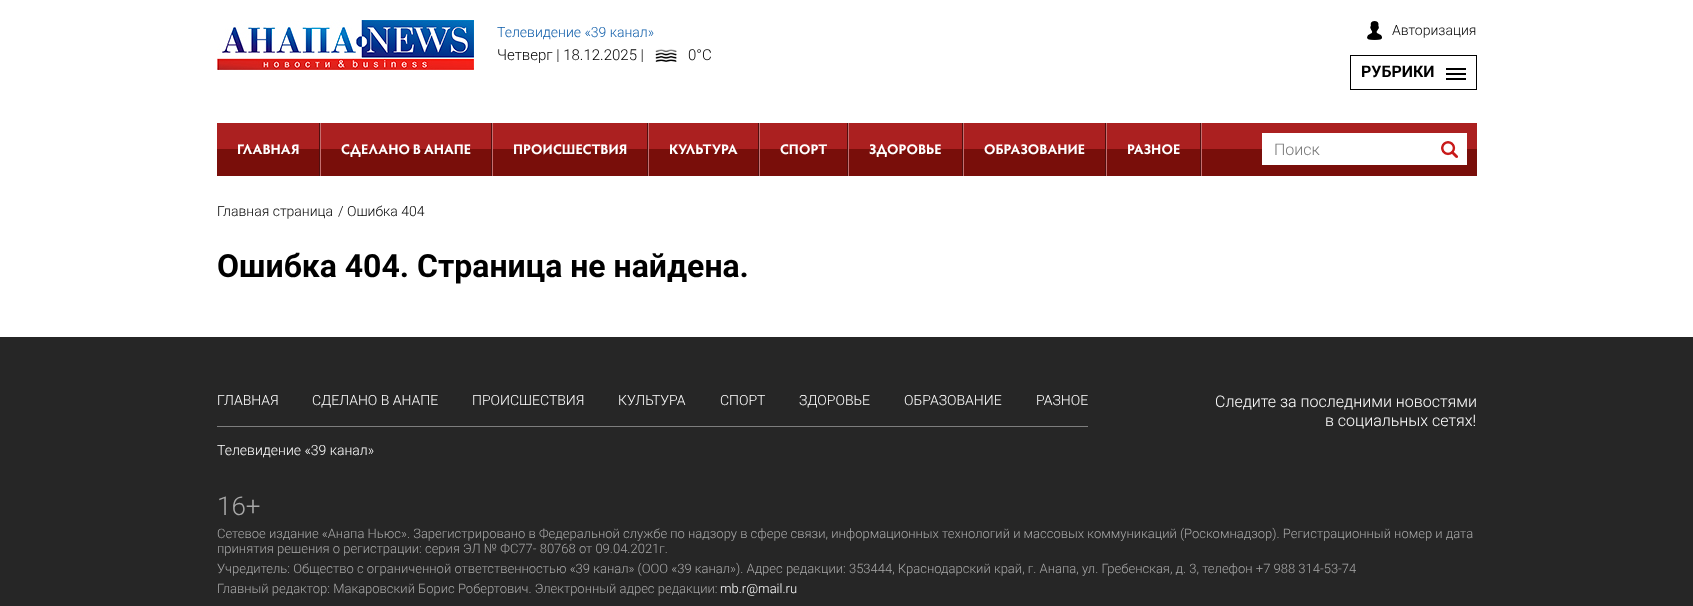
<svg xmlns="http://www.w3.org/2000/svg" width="1693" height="606">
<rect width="100%" height="100%" fill="#fff"/>
<image x="217" y="20" width="257" height="50" href="media/1.png"/>
<text x="497" y="37" style="font-family:Roboto;font-size:14px;font-weight:300;fill:#0d5ca9">Телевидение «39 канал»</text>
<text x="497" y="60" style="font-family:Roboto;font-size:15px;font-weight:300;fill:#000">Четверг | 18.12.2025 |</text>
<image x="655" y="49" width="22" height="13" href="media/2.png"/>
<text x="688" y="60" style="font-family:Roboto;font-size:15px;font-weight:300;fill:#000">0°C</text>
<image x="1367" y="21" width="15" height="19" href="media/3.png"/>
<text x="1392" y="35" style="font-family:Roboto;font-size:14px;font-weight:300;fill:#000">Авторизация</text>
<rect x="1350.5" y="55.5" width="126" height="34" fill="none" stroke="#000"/>
<text x="1361" y="77" style="font-family:Roboto;font-size:16px;font-weight:bold;fill:#000">РУБРИКИ</text>
<rect x="1446" y="68" width="20" height="2" fill="#000"/>
<rect x="1446" y="73" width="20" height="2" fill="#000"/>
<rect x="1446" y="78" width="20" height="2" fill="#000"/>
<rect x="217" y="123" width="1260" height="26" fill="#ab2020"/>
<rect x="217" y="149" width="1260" height="27" fill="#790e0a"/>
<rect x="319" y="123" width="1" height="53" fill="#500f0f"/>
<text x="237" y="154" style="font-family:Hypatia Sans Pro;font-size:14px;font-weight:bold;fill:#fff">ГЛАВНАЯ</text>
<rect x="491" y="123" width="1" height="53" fill="#500f0f"/>
<rect x="320" y="123" width="1" height="53" fill="#c56f6f"/>
<text x="341" y="154" style="font-family:Hypatia Sans Pro;font-size:14px;font-weight:bold;fill:#fff">СДЕЛАНО В АНАПЕ</text>
<rect x="647" y="123" width="1" height="53" fill="#500f0f"/>
<rect x="492" y="123" width="1" height="53" fill="#c56f6f"/>
<text x="513" y="154" style="font-family:Hypatia Sans Pro;font-size:14px;font-weight:bold;fill:#fff">ПРОИСШЕСТВИЯ</text>
<rect x="758" y="123" width="1" height="53" fill="#500f0f"/>
<rect x="648" y="123" width="1" height="53" fill="#c56f6f"/>
<text x="669" y="154" style="font-family:Hypatia Sans Pro;font-size:14px;font-weight:bold;fill:#fff">КУЛЬТУРА</text>
<rect x="847" y="123" width="1" height="53" fill="#500f0f"/>
<rect x="759" y="123" width="1" height="53" fill="#c56f6f"/>
<text x="780" y="154" style="font-family:Hypatia Sans Pro;font-size:14px;font-weight:bold;fill:#fff">СПОРТ</text>
<rect x="962" y="123" width="1" height="53" fill="#500f0f"/>
<rect x="848" y="123" width="1" height="53" fill="#c56f6f"/>
<text x="869" y="154" style="font-family:Hypatia Sans Pro;font-size:14px;font-weight:bold;fill:#fff">ЗДОРОВЬЕ</text>
<rect x="1105" y="123" width="1" height="53" fill="#500f0f"/>
<rect x="963" y="123" width="1" height="53" fill="#c56f6f"/>
<text x="984" y="154" style="font-family:Hypatia Sans Pro;font-size:14px;font-weight:bold;fill:#fff">ОБРАЗОВАНИЕ</text>
<rect x="1200" y="123" width="1" height="53" fill="#500f0f"/>
<rect x="1106" y="123" width="1" height="53" fill="#c56f6f"/>
<text x="1127" y="154" style="font-family:Hypatia Sans Pro;font-size:14px;font-weight:bold;fill:#fff">РАЗНОЕ</text>
<rect x="1201" y="123" width="1" height="53" fill="#c56f6f"/>
<rect x="1262" y="133" width="205" height="32" fill="#fff"/>
<text x="1274" y="155" style="font-family:Roboto;font-size:16px;font-weight:300;fill:#757575">Поиск</text>
<image x="1441" y="141" width="17" height="17" href="media/4.png"/>
<text x="217" y="216" style="font-family:Roboto;font-size:14px;font-weight:300;fill:#000">Главная страница</text>
<text x="338" y="216" style="font-family:Roboto;font-size:14px;font-weight:300;fill:#000">/</text>
<text x="347" y="216" style="font-family:Roboto;font-size:14px;font-weight:300;fill:#000">Ошибка 404</text>
<text x="217" y="277" style="font-family:Roboto;font-size:32px;font-weight:bold;fill:#000">Ошибка 404. Страница не найдена.</text>
<rect y="337" width="1693" height="269" fill="#262626"/>
<rect x="217" y="426" width="871" height="1" fill="#7d7d7d"/>
<text x="217" y="405" style="font-family:Roboto;font-size:14px;font-weight:300;fill:#fff">ГЛАВНАЯ</text>
<text x="312" y="405" style="font-family:Roboto;font-size:14px;font-weight:300;fill:#fff">СДЕЛАНО В АНАПЕ</text>
<text x="472" y="405" style="font-family:Roboto;font-size:14px;font-weight:300;fill:#fff">ПРОИСШЕСТВИЯ</text>
<text x="618" y="405" style="font-family:Roboto;font-size:14px;font-weight:300;fill:#fff">КУЛЬТУРА</text>
<text x="720" y="405" style="font-family:Roboto;font-size:14px;font-weight:300;fill:#fff">СПОРТ</text>
<text x="799" y="405" style="font-family:Roboto;font-size:14px;font-weight:300;fill:#fff">ЗДОРОВЬЕ</text>
<text x="904" y="405" style="font-family:Roboto;font-size:14px;font-weight:300;fill:#fff">ОБРАЗОВАНИЕ</text>
<text x="1036" y="405" style="font-family:Roboto;font-size:14px;font-weight:300;fill:#fff">РАЗНОЕ</text>
<text x="217" y="455" style="font-family:Roboto;font-size:14px;font-weight:300;fill:#fff">Телевидение «39 канал»</text>
<text x="1215" y="407" style="font-family:Roboto;font-size:16px;font-weight:300;fill:#fff">Следите за последними новостями</text>
<text x="1325" y="426" style="font-family:Roboto;font-size:16px;font-weight:300;fill:#fff">в социальных сетях!</text>
<text x="217" y="515" style="font-family:Roboto;font-size:26px;font-weight:300;fill:#a8a8a8">16+</text>
<text x="217" y="538" style="font-family:Roboto;font-size:13px;font-weight:300;fill:#a8a8a8">Сетевое издание «Анапа Ньюс». Зарегистрировано в Федеральной службе по надзору в сфере связи, информационных технологий и массовых коммуникаций (Роскомнадзор). Регистрационный номер и дата</text>
<text x="217" y="553" style="font-family:Roboto;font-size:13px;font-weight:300;fill:#a8a8a8">принятия решения о регистрации: серия ЭЛ № ФС77- 80768 от 09.04.2021г.</text>
<text x="217" y="573" style="font-family:Roboto;font-size:13px;font-weight:300;fill:#a8a8a8">Учредитель: Общество с ограниченной ответственностью «39 канал» (ООО «39 канал»). Адрес редакции: 353444, Краснодарский край, г. Анапа, ул. Гребенская, д. 3, телефон +7 988 314-53-74</text>
<text x="217" y="593" style="font-family:Roboto;font-size:13px;font-weight:300;fill:#a8a8a8">Главный редактор: Макаровский Борис Робертович. Электронный адрес редакции:</text>
<text x="720" y="593" style="font-family:Roboto;font-size:13px;font-weight:300;fill:#fff">mb.r@mail.ru</text>
</svg>
